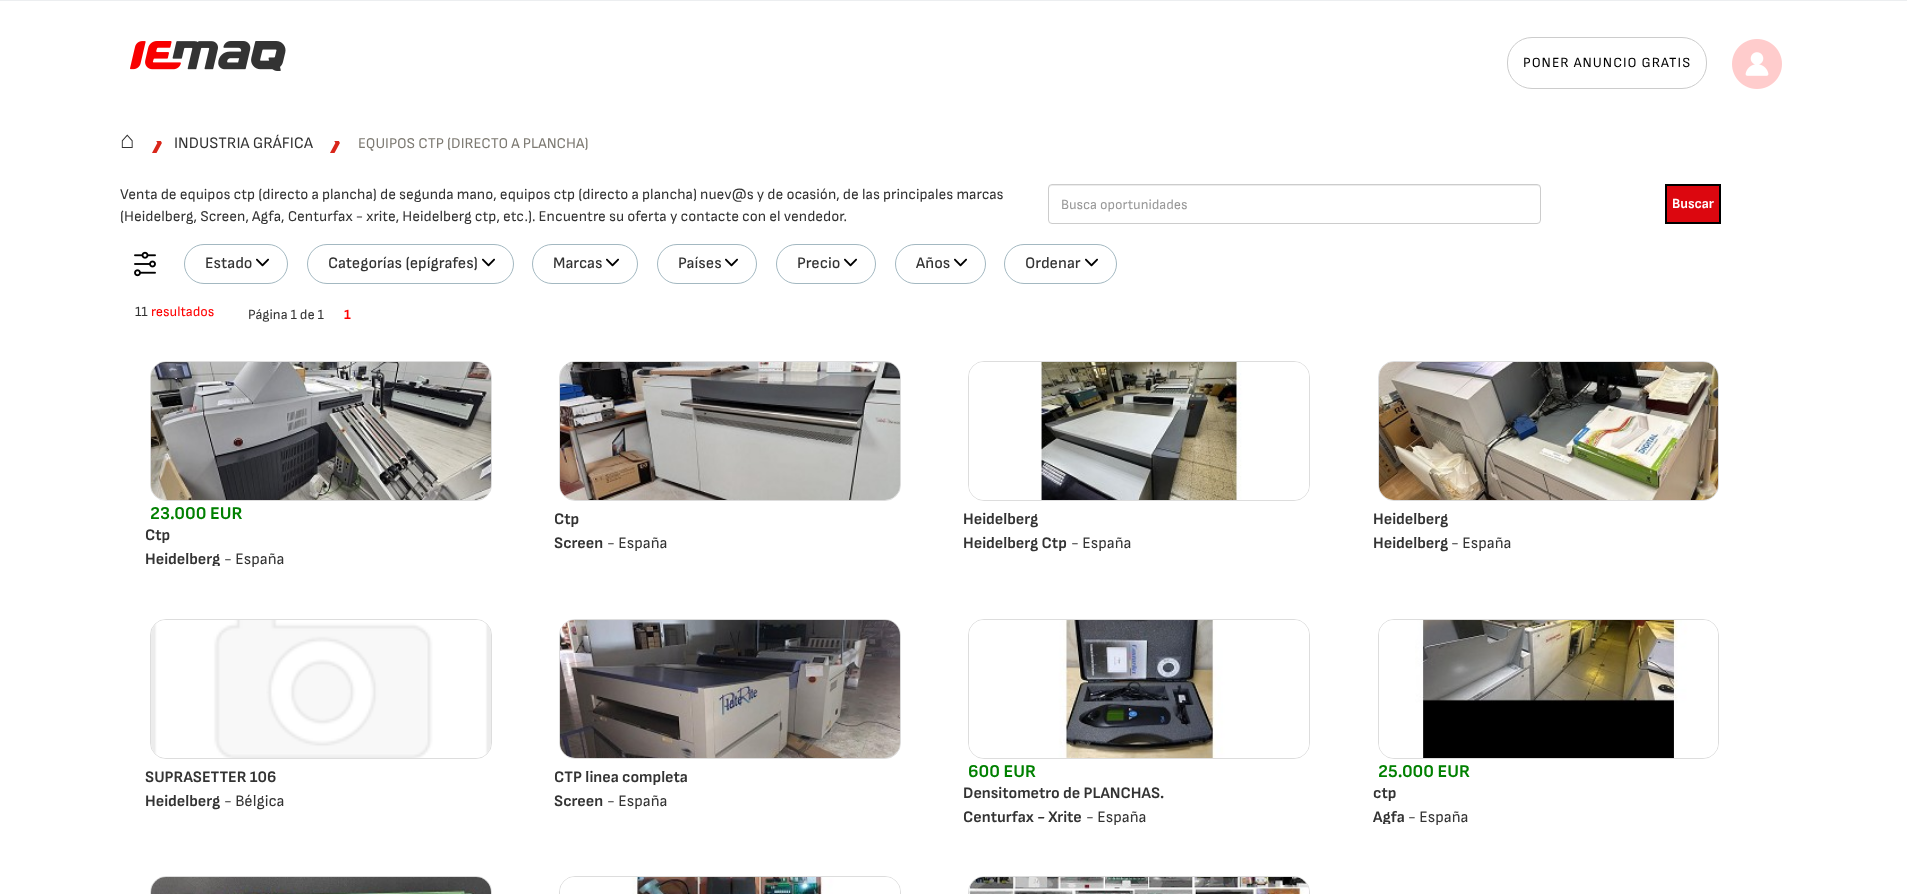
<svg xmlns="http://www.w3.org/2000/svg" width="1907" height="894">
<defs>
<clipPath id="clip1"><rect x="145" y="346" width="389" height="220"/></clipPath>
<clipPath id="clip2"><rect x="1373" y="604" width="389" height="220"/></clipPath>
</defs>
<rect width="100%" height="100%" fill="#fff"/>
<rect width="1907" height="1" fill="#eceef0"/>
<image x="130" y="41" width="156" height="30" href="media/1.png"/>
<rect x="1507.5" y="37.5" width="199" height="51" rx="24.5" fill="none" stroke="#ccc"/>
<text x="1523" y="67" style="font-family:Sofia Sans;font-size:14px;letter-spacing:1px;fill:#000">PONER ANUNCIO GRATIS</text>
<image x="1732" y="39" width="50" height="50" href="media/2.png"/>
<text x="120" y="148" style="font-family:Liberation Sans;font-size:24px;font-weight:bold;fill:#333">⌂</text>
<image x="152" y="141" width="10" height="12" href="media/3.png"/>
<text x="174" y="148" style="font-family:Sofia Sans;font-size:16px;fill:#333">INDUSTRIA GRÁFICA</text>
<image x="330" y="141" width="10" height="12" href="media/3.png"/>
<text x="358" y="148" style="font-family:Sofia Sans;font-size:15px;fill:#7d7a72">EQUIPOS CTP (DIRECTO A PLANCHA)</text>
<text x="120" y="199" style="font-family:Sofia Sans;font-size:15px;fill:#333">Venta de equipos ctp (directo a plancha) de segunda mano, equipos ctp (directo a plancha) nuev@s y de ocasión, de las principales marcas</text>
<text x="120" y="221" style="font-family:Sofia Sans;font-size:15px;fill:#333">(Heidelberg, Screen, Agfa, Centurfax - xrite, Heidelberg ctp, etc.). Encuentre su oferta y contacte con el vendedor.</text>
<path d="M1052 186h485c2 0 3 1 3 3v-1c0-2-1-3-3-3h-485c-2 0-3 1-3 3v1c0-2 1-3 3-3z" fill="#ececec"/>
<rect x="1048.5" y="184.5" width="492" height="39" rx="3.5" fill="none" stroke="#ccc"/>
<text x="1061" y="209" style="font-family:Sofia Sans;font-size:14px;fill:#999">Busca oportunidades</text>
<rect x="1666" y="185" width="54" height="38" fill="#dc070f" stroke="#000" stroke-width="2"/>
<text x="1672" y="208" style="font-family:Sofia Sans;font-size:14px;font-weight:bold;fill:#fff">Buscar</text>
<image x="134" y="251" width="22" height="26" href="media/4.png"/>
<rect x="184.5" y="244.5" width="103" height="39" rx="19.5" fill="none" stroke="#a3b8c1"/>
<text x="205" y="268" style="font-family:Sofia Sans;font-size:16px;font-weight:500;fill:#333">Estado</text>
<image x="256" y="258" width="13" height="9" href="media/5.png"/>
<rect x="307.5" y="244.5" width="206" height="39" rx="19.5" fill="none" stroke="#a3b8c1"/>
<text x="328" y="268" style="font-family:Sofia Sans;font-size:16px;font-weight:500;fill:#333">Categorías (epígrafes)</text>
<image x="482" y="258" width="13" height="9" href="media/5.png"/>
<rect x="532.5" y="244.5" width="105" height="39" rx="19.5" fill="none" stroke="#a3b8c1"/>
<text x="553" y="268" style="font-family:Sofia Sans;font-size:16px;font-weight:500;fill:#333">Marcas</text>
<image x="606" y="258" width="13" height="9" href="media/5.png"/>
<rect x="657.5" y="244.5" width="99" height="39" rx="19.5" fill="none" stroke="#a3b8c1"/>
<text x="678" y="268" style="font-family:Sofia Sans;font-size:16px;font-weight:500;fill:#333">Países</text>
<image x="725" y="258" width="13" height="9" href="media/5.png"/>
<rect x="776.5" y="244.5" width="99" height="39" rx="19.5" fill="none" stroke="#a3b8c1"/>
<text x="797" y="268" style="font-family:Sofia Sans;font-size:16px;font-weight:500;fill:#333">Precio</text>
<image x="844" y="258" width="13" height="9" href="media/5.png"/>
<rect x="895.5" y="244.5" width="90" height="39" rx="19.5" fill="none" stroke="#a3b8c1"/>
<text x="916" y="268" style="font-family:Sofia Sans;font-size:16px;font-weight:500;fill:#333">Años</text>
<image x="954" y="258" width="13" height="9" href="media/5.png"/>
<rect x="1004.5" y="244.5" width="112" height="39" rx="19.5" fill="none" stroke="#a3b8c1"/>
<text x="1025" y="268" style="font-family:Sofia Sans;font-size:16px;font-weight:500;fill:#333">Ordenar</text>
<image x="1085" y="258" width="13" height="9" href="media/5.png"/>
<text x="135" y="316" style="font-family:Sofia Sans;font-size:14px;fill:#333">11</text>
<text x="151" y="316" style="font-family:Sofia Sans;font-size:14px;fill:#f00">resultados</text>
<text x="248" y="319" style="font-family:Sofia Sans;font-size:14px;fill:#333">Página 1 de 1</text>
<text x="344" y="319" style="font-family:Sofia Sans;font-size:14px;font-weight:bold;fill:#f00">1</text>
<rect x="150.5" y="361.5" width="341" height="139" rx="15.5" fill="none" stroke="#ddd"/>
<image x="151" y="362" width="340" height="138" href="media/6.png"/>
<text x="150" y="519" style="font-family:Sofia Sans;font-size:18px;font-weight:bold;fill:#008000">23.000 EUR</text>
<text x="145" y="540" style="font-family:Sofia Sans;font-size:16px;font-weight:bold;fill:#333">Ctp</text>
<g clip-path="url(#clip1)">
<text x="145" y="564" style="font-family:Sofia Sans;font-size:16px;font-weight:bold;fill:#333">Heidelberg</text>
</g>
<text x="224" y="564" style="font-family:Sofia Sans;font-size:16px;fill:#333">- España</text>
<rect x="559.5" y="361.5" width="341" height="139" rx="15.5" fill="none" stroke="#ddd"/>
<image x="560" y="362" width="340" height="138" href="media/7.png"/>
<text x="554" y="524" style="font-family:Sofia Sans;font-size:16px;font-weight:bold;fill:#333">Ctp</text>
<text x="554" y="548" style="font-family:Sofia Sans;font-size:16px;font-weight:bold;fill:#333">Screen</text>
<text x="607" y="548" style="font-family:Sofia Sans;font-size:16px;fill:#333">- España</text>
<rect x="968.5" y="361.5" width="341" height="139" rx="15.5" fill="none" stroke="#ddd"/>
<image x="969" y="362" width="340" height="138" href="media/8.png"/>
<text x="963" y="524" style="font-family:Sofia Sans;font-size:16px;font-weight:bold;fill:#333">Heidelberg</text>
<text x="963" y="548" style="font-family:Sofia Sans;font-size:16px;font-weight:bold;fill:#333">Heidelberg Ctp</text>
<text x="1071" y="548" style="font-family:Sofia Sans;font-size:16px;fill:#333">- España</text>
<rect x="1378.5" y="361.5" width="340" height="139" rx="15.5" fill="none" stroke="#ddd"/>
<image x="1379" y="362" width="339" height="138" href="media/9.png"/>
<text x="1373" y="524" style="font-family:Sofia Sans;font-size:16px;font-weight:bold;fill:#333">Heidelberg</text>
<text x="1373" y="548" style="font-family:Sofia Sans;font-size:16px;font-weight:bold;fill:#333">Heidelberg</text>
<text x="1451" y="548" style="font-family:Sofia Sans;font-size:16px;fill:#333">- España</text>
<rect x="150.5" y="619.5" width="341" height="139" rx="15.5" fill="none" stroke="#ddd"/>
<image x="151" y="620" width="340" height="138" href="media/10.png"/>
<text x="145" y="782" style="font-family:Sofia Sans;font-size:16px;font-weight:bold;fill:#333">SUPRASETTER 106</text>
<text x="145" y="806" style="font-family:Sofia Sans;font-size:16px;font-weight:bold;fill:#333">Heidelberg</text>
<text x="224" y="806" style="font-family:Sofia Sans;font-size:16px;fill:#333">- Bélgica</text>
<rect x="559.5" y="619.5" width="341" height="139" rx="15.5" fill="none" stroke="#ddd"/>
<image x="560" y="620" width="340" height="138" href="media/11.png"/>
<text x="554" y="782" style="font-family:Sofia Sans;font-size:16px;font-weight:bold;fill:#333">CTP linea completa</text>
<text x="554" y="806" style="font-family:Sofia Sans;font-size:16px;font-weight:bold;fill:#333">Screen</text>
<text x="607" y="806" style="font-family:Sofia Sans;font-size:16px;fill:#333">- España</text>
<rect x="968.5" y="619.5" width="341" height="139" rx="15.5" fill="none" stroke="#ddd"/>
<image x="969" y="620" width="340" height="138" href="media/12.png"/>
<text x="968" y="777" style="font-family:Sofia Sans;font-size:18px;font-weight:bold;fill:#008000">600 EUR</text>
<text x="963" y="798" style="font-family:Sofia Sans;font-size:16px;font-weight:bold;fill:#333">Densitometro de PLANCHAS.</text>
<text x="963" y="822" style="font-family:Sofia Sans;font-size:16px;font-weight:bold;fill:#333">Centurfax - Xrite</text>
<text x="1086" y="822" style="font-family:Sofia Sans;font-size:16px;fill:#333">- España</text>
<rect x="1378.5" y="619.5" width="340" height="139" rx="15.5" fill="none" stroke="#ddd"/>
<image x="1379" y="620" width="339" height="138" href="media/13.png"/>
<text x="1378" y="777" style="font-family:Sofia Sans;font-size:18px;font-weight:bold;fill:#008000">25.000 EUR</text>
<text x="1373" y="798" style="font-family:Sofia Sans;font-size:16px;font-weight:bold;fill:#333">ctp</text>
<g clip-path="url(#clip2)">
<text x="1373" y="822" style="font-family:Sofia Sans;font-size:16px;font-weight:bold;fill:#333">Agfa</text>
</g>
<text x="1408" y="822" style="font-family:Sofia Sans;font-size:16px;fill:#333">- España</text>
<rect x="150.5" y="876.5" width="341" height="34" rx="15.5" fill="none" stroke="#ddd"/>
<image x="151" y="877" width="340" height="17" href="media/14.png"/>
<rect x="559.5" y="876.5" width="341" height="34" rx="15.5" fill="none" stroke="#ddd"/>
<image x="560" y="877" width="340" height="17" href="media/15.png"/>
<rect x="968.5" y="876.5" width="341" height="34" rx="15.5" fill="none" stroke="#ddd"/>
<image x="969" y="877" width="340" height="17" href="media/16.png"/>
</svg>
